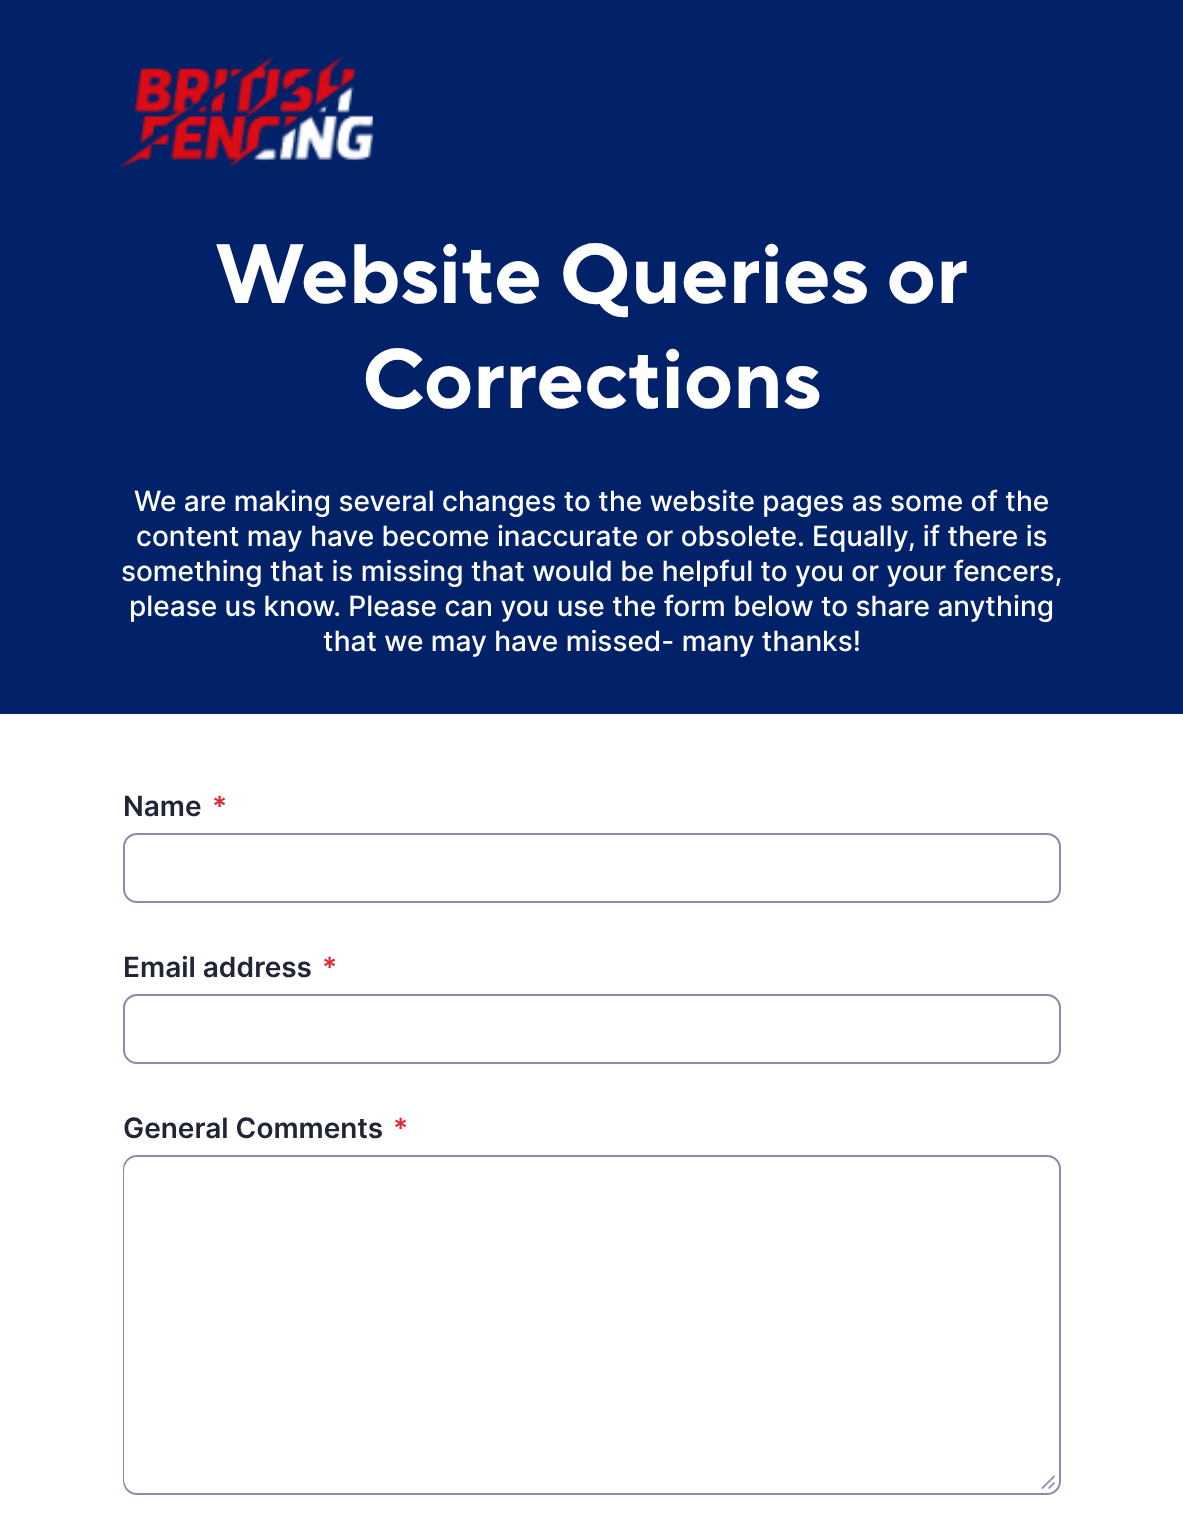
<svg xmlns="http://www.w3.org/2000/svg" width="1183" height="1515">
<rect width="100%" height="100%" fill="#fff"/>
<rect width="1183" height="714" fill="#012169"/>
<image x="119" y="56" width="254" height="112" href="media/1.png"/>
<text x="215" y="303" style="font-family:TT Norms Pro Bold;font-size:84px;font-weight:bold;fill:#fff">Website Queries or</text>
<text x="362" y="408" style="font-family:TT Norms Pro Bold;font-size:84px;font-weight:bold;fill:#fff">Corrections</text>
<text x="134" y="511" style="font-family:Inter;font-size:28px;font-weight:500;fill:#fff">We are making several changes to the website pages as some of the</text>
<text x="136" y="546" style="font-family:Inter;font-size:28px;font-weight:500;fill:#fff">content may have become inaccurate or obsolete. Equally, if there is</text>
<text x="121" y="581" style="font-family:Inter;font-size:28px;font-weight:500;fill:#fff">something that is missing that would be helpful to you or your fencers,</text>
<text x="129" y="616" style="font-family:Inter;font-size:28px;font-weight:500;fill:#fff">please us know. Please can you use the form below to share anything</text>
<text x="323" y="651" style="font-family:Inter;font-size:28px;font-weight:500;fill:#fff">that we may have missed- many thanks!</text>
<text x="123" y="816" style="font-family:Inter;font-size:28px;font-weight:600;fill:#212536">Name</text>
<text x="212" y="816" style="font-family:Inter;font-size:28px;font-weight:600;fill:#df2a36">*</text>
<rect x="124" y="834" width="936" height="68" rx="13" fill="none" stroke="#878dab" stroke-width="2"/>
<text x="123" y="977" style="font-family:Inter;font-size:28px;font-weight:600;fill:#212536">Email address</text>
<text x="322" y="977" style="font-family:Inter;font-size:28px;font-weight:600;fill:#df2a36">*</text>
<rect x="124" y="995" width="936" height="68" rx="13" fill="none" stroke="#878dab" stroke-width="2"/>
<text x="123" y="1138" style="font-family:Inter;font-size:28px;font-weight:600;fill:#212536">General Comments</text>
<text x="393" y="1138" style="font-family:Inter;font-size:28px;font-weight:600;fill:#df2a36">*</text>
<rect x="124" y="1156" width="936" height="338" rx="13" fill="none" stroke="#878dab" stroke-width="2"/>
<rect x="124" y="1157" width="928" height="336" rx="14" fill="#fff"/>
<image x="1041" y="1475" width="14" height="14" href="media/2.png"/>
</svg>
